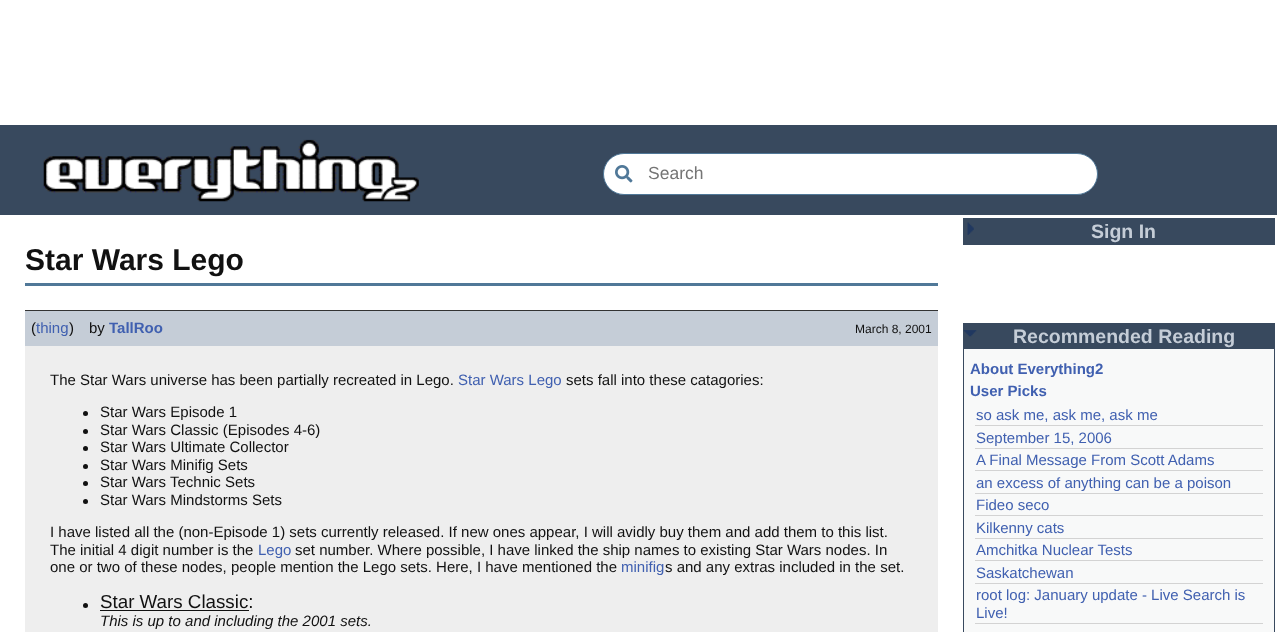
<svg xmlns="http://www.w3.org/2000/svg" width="1277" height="632">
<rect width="100%" height="100%" fill="#fff"/>
<rect y="125" width="1277" height="90" fill="#38495e"/>
<image x="43" y="139" width="376" height="63" href="media/1.png"/>
<rect x="603.5" y="153.5" width="494" height="41" rx="20.5" fill="#fff" stroke="#507898"/>
<image x="615" y="165" width="18" height="18" href="media/2.png"/>
<text x="648" y="179" style="font-family:Liberation Sans;font-size:17.5px;fill:#757575">Search</text>
<rect x="25" y="283" width="913" height="3" fill="#507898"/>
<text x="25" y="270" style="font-family:Liberation Sans;font-size:30px;font-weight:bold;fill:#111">Star Wars Lego</text>
<rect x="25" y="311" width="913" height="35" fill="#c5cdd7"/>
<rect x="25" y="310" width="913" height="1" fill="#333"/>
<text x="31" y="333" style="font-family:Liberation Sans;font-size:15px;fill:#111">(</text>
<text x="36" y="333" style="font-family:Liberation Sans;font-size:15px;fill:#4060b0">thing</text>
<text x="69" y="333" style="font-family:Liberation Sans;font-size:15px;fill:#111">)</text>
<text x="89" y="333" style="font-family:Liberation Sans;font-size:15px;fill:#111">by</text>
<text x="109" y="333" style="font-family:Liberation Sans;font-size:15px;font-weight:bold;fill:#4060b0">TallRoo</text>
<text x="855" y="333" style="font-family:Liberation Sans;font-size:12px;fill:#111">March 8, 2001</text>
<rect x="25" y="346" width="913" height="286" fill="#eee"/>
<text x="50" y="385" style="font-family:Liberation Sans;font-size:15px;fill:#111">The Star Wars universe has been partially recreated in Lego.</text>
<text x="458" y="385" style="font-family:Liberation Sans;font-size:15px;fill:#4060b0">Star Wars Lego</text>
<text x="566" y="385" style="font-family:Liberation Sans;font-size:15px;fill:#111">sets fall into these catagories:</text>
<circle cx="85.5" cy="413.5" r="2.5" fill="#111"/>
<text x="100" y="417" style="font-family:Liberation Sans;font-size:15px;fill:#111">Star Wars Episode 1</text>
<circle cx="85.5" cy="431.5" r="2.5" fill="#111"/>
<text x="100" y="435" style="font-family:Liberation Sans;font-size:15px;fill:#111">Star Wars Classic (Episodes 4-6)</text>
<circle cx="85.5" cy="448.5" r="2.5" fill="#111"/>
<text x="100" y="452" style="font-family:Liberation Sans;font-size:15px;fill:#111">Star Wars Ultimate Collector</text>
<circle cx="85.5" cy="466.5" r="2.5" fill="#111"/>
<text x="100" y="470" style="font-family:Liberation Sans;font-size:15px;fill:#111">Star Wars Minifig Sets</text>
<circle cx="85.5" cy="483.5" r="2.5" fill="#111"/>
<text x="100" y="487" style="font-family:Liberation Sans;font-size:15px;fill:#111">Star Wars Technic Sets</text>
<circle cx="85.5" cy="501.5" r="2.5" fill="#111"/>
<text x="100" y="505" style="font-family:Liberation Sans;font-size:15px;fill:#111">Star Wars Mindstorms Sets</text>
<text x="50" y="537" style="font-family:Liberation Sans;font-size:15px;fill:#111">I have listed all the (non-Episode 1) sets currently released. If new ones appear, I will avidly buy them and add them to this list.</text>
<text x="50" y="555" style="font-family:Liberation Sans;font-size:15px;fill:#111">The initial 4 digit number is the</text>
<text x="258" y="555" style="font-family:Liberation Sans;font-size:15px;fill:#4060b0">Lego</text>
<text x="295" y="555" style="font-family:Liberation Sans;font-size:15px;fill:#111">set number. Where possible, I have linked the ship names to existing Star Wars nodes. In</text>
<text x="50" y="572" style="font-family:Liberation Sans;font-size:15px;fill:#111">one or two of these nodes, people mention the Lego sets. Here, I have mentioned the</text>
<text x="621" y="572" style="font-family:Liberation Sans;font-size:15px;fill:#4060b0">minifig</text>
<text x="665" y="572" style="font-family:Liberation Sans;font-size:15px;fill:#111">s and any extras included in the set.</text>
<circle cx="85.5" cy="605.5" r="2.5" fill="#111"/>
<text x="100" y="608" style="font-family:Liberation Sans;font-size:18.75px;fill:#111">Star Wars Classic:</text>
<rect x="100" y="610" width="149" height="1" fill="#111"/>
<text x="100" y="626" style="font-family:Liberation Sans;font-size:15px;font-style:italic;fill:#111">This is up to and including the 2001 sets.</text>
<rect x="963.5" y="218.5" width="311" height="26" fill="none" stroke="#38495e"/>
<rect x="964" y="219" width="310" height="25" fill="#38495e"/>
<image x="967" y="222" width="7" height="13" href="media/3.png"/>
<text x="1091" y="238" style="font-family:Liberation Sans;font-size:19.5px;font-weight:bold;fill:#c5cdd7">Sign In</text>
<rect x="964" y="349" width="310" height="283" fill="#f8f9f9"/>
<rect x="963.5" y="323.5" width="311" height="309" fill="none" stroke="#38495e"/>
<rect x="964" y="324" width="310" height="25" fill="#38495e"/>
<image x="963" y="330" width="14" height="7" href="media/4.png"/>
<text x="1013" y="343" style="font-family:Liberation Sans;font-size:19.5px;font-weight:bold;fill:#c5cdd7">Recommended Reading</text>
<text x="970" y="374" style="font-family:Liberation Sans;font-size:15px;font-weight:bold;fill:#4060b0">About Everything2</text>
<text x="970" y="396" style="font-family:Liberation Sans;font-size:15px;font-weight:bold;fill:#4060b0">User Picks</text>
<rect x="975" y="425" width="288" height="1" fill="#d3d3d3"/>
<text x="976" y="420" style="font-family:Liberation Sans;font-size:15px;fill:#4060b0">so ask me, ask me, ask me</text>
<rect x="975" y="448" width="288" height="1" fill="#d3d3d3"/>
<text x="976" y="443" style="font-family:Liberation Sans;font-size:15px;fill:#4060b0">September 15, 2006</text>
<rect x="975" y="470" width="288" height="1" fill="#d3d3d3"/>
<text x="976" y="465" style="font-family:Liberation Sans;font-size:15px;fill:#4060b0">A Final Message From Scott Adams</text>
<rect x="975" y="493" width="288" height="1" fill="#d3d3d3"/>
<text x="976" y="488" style="font-family:Liberation Sans;font-size:15px;fill:#4060b0">an excess of anything can be a poison</text>
<rect x="975" y="515" width="288" height="1" fill="#d3d3d3"/>
<text x="976" y="510" style="font-family:Liberation Sans;font-size:15px;fill:#4060b0">Fideo seco</text>
<rect x="975" y="538" width="288" height="1" fill="#d3d3d3"/>
<text x="976" y="533" style="font-family:Liberation Sans;font-size:15px;fill:#4060b0">Kilkenny cats</text>
<rect x="975" y="560" width="288" height="1" fill="#d3d3d3"/>
<text x="976" y="555" style="font-family:Liberation Sans;font-size:15px;fill:#4060b0">Amchitka Nuclear Tests</text>
<rect x="975" y="583" width="288" height="1" fill="#d3d3d3"/>
<text x="976" y="578" style="font-family:Liberation Sans;font-size:15px;fill:#4060b0">Saskatchewan</text>
<rect x="975" y="623" width="288" height="1" fill="#d3d3d3"/>
<text x="976" y="600" style="font-family:Liberation Sans;font-size:15px;fill:#4060b0">root log: January update - Live Search is</text>
<text x="976" y="618" style="font-family:Liberation Sans;font-size:15px;fill:#4060b0">Live!</text>
</svg>
